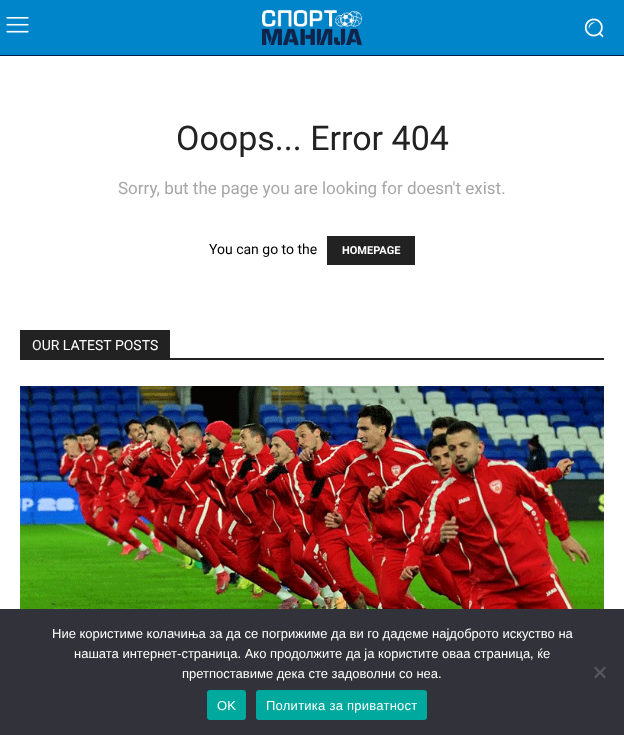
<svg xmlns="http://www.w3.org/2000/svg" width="624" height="735">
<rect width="100%" height="100%" fill="#fff"/>
<rect width="624" height="55" fill="#0085ca"/>
<image x="6" y="17" width="23" height="16" href="media/1.png"/>
<image x="262" y="10" width="100" height="35" href="media/2.png"/>
<image x="584" y="18" width="20" height="20" href="media/3.png"/>
<rect y="55" width="624" height="1" fill="#00204a"/>
<text x="176" y="150" style="font-family:Roboto;font-size:34px;fill:#222">Ooops... Error 404</text>
<text x="118" y="194" style="font-family:Roboto;font-size:17px;fill:#a6a6a6">Sorry, but the page you are looking for doesn't exist.</text>
<text x="209" y="254" style="font-family:Roboto;font-size:14px;fill:#000">You can go to the</text>
<rect x="327" y="236" width="88" height="29" fill="#222"/>
<text x="342" y="254" style="font-family:Roboto;font-size:11px;font-weight:bold;fill:#fff">HOMEPAGE</text>
<rect x="20" y="358" width="584" height="2" fill="#222"/>
<rect x="20" y="330" width="150" height="28" fill="#222"/>
<text x="32" y="350" style="font-family:Roboto;font-size:14px;fill:#fff">OUR LATEST POSTS</text>
<image x="20" y="386" width="584" height="223" href="media/4.png"/>
<rect y="609" width="624" height="126" fill="#32323a"/>
<text x="52" y="638" style="font-family:Liberation Sans;font-size:13px;fill:#fff">Ние користиме колачиња за да се погрижиме да ви го дадеме најдоброто искуство на</text>
<text x="74" y="658" style="font-family:Liberation Sans;font-size:13px;fill:#fff">нашата интернет-страница. Ако продолжите да ја користите оваа страница, ќе</text>
<text x="182" y="678" style="font-family:Liberation Sans;font-size:13px;fill:#fff">претпоставиме дека сте задоволни со неа.</text>
<path d="M604.5 666.5l1.5 1.5l-10.5 10.5l-1.5-1.5z" fill="#59595d"/>
<path d="M594 668l1.5-1.5l10.5 10.5l-1.5 1.5z" fill="#59595d"/>
<rect x="207" y="690" width="39" height="30" rx="3" fill="#00a99d"/>
<text x="217" y="710" style="font-family:Liberation Sans;font-size:13px;letter-spacing:0.25px;fill:#fff">OK</text>
<rect x="256" y="690" width="171" height="30" rx="3" fill="#00a99d"/>
<text x="266" y="710" style="font-family:Liberation Sans;font-size:13px;letter-spacing:0.25px;fill:#fff">Политика за приватност</text>
</svg>
